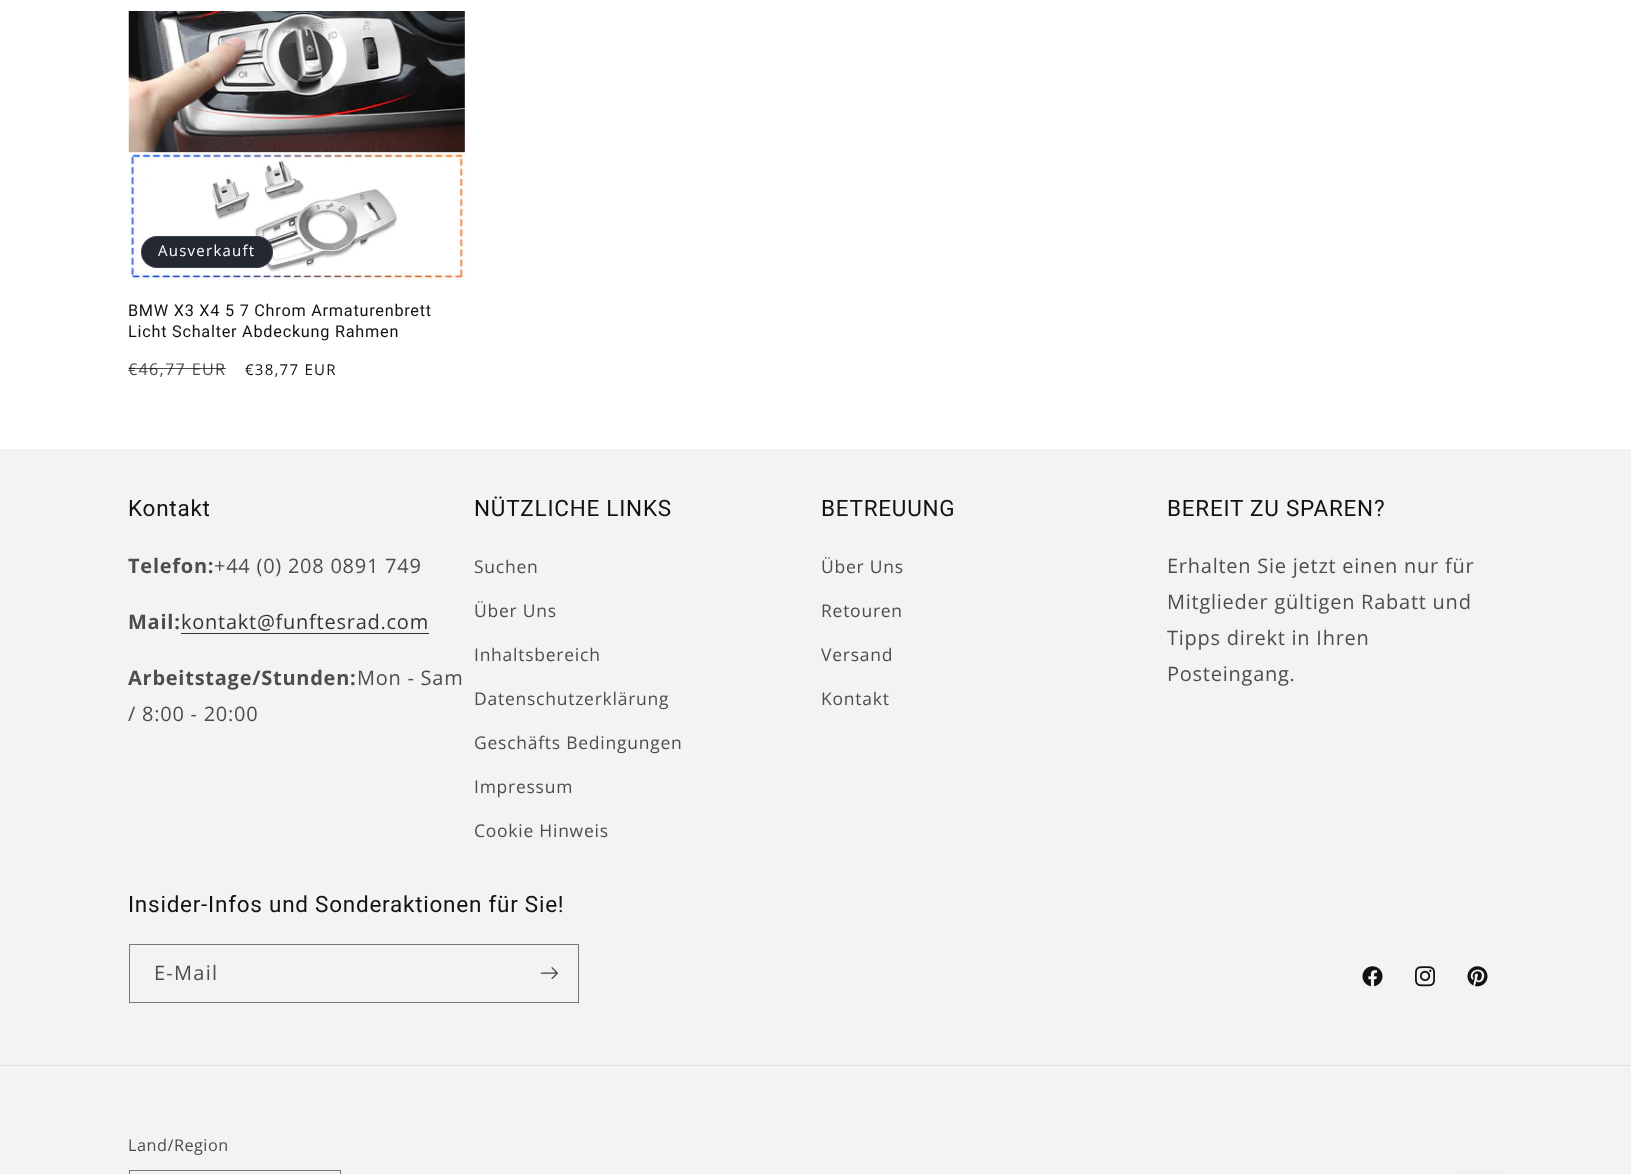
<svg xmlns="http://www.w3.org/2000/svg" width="1631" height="1174">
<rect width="100%" height="100%" fill="#fff"/>
<rect x="129" y="11" width="336" height="269" fill="#f3f3f3"/>
<image x="128" y="11" width="337" height="269" href="media/1.png"/>
<rect x="141" y="236" width="132" height="32" rx="16" fill="#242833"/>
<rect x="141.5" y="236.5" width="131" height="31" rx="15.5" fill="none" stroke="#ffffff1a"/>
<text x="158" y="256" style="font-family:Open Sans;font-size:15px;letter-spacing:1.25px;fill:#fff">Ausverkauft</text>
<text x="128" y="316" style="font-family:Roboto;font-size:16.25px;letter-spacing:0.75px;fill:#121212">BMW X3 X4 5 7 Chrom Armaturenbrett</text>
<text x="128" y="337" style="font-family:Roboto;font-size:16.25px;letter-spacing:0.75px;fill:#121212">Licht Schalter Abdeckung Rahmen</text>
<text x="128" y="375" style="font-family:Open Sans;font-size:16.25px;letter-spacing:1.25px;fill:#4d4d4d">€46,77 EUR</text>
<rect x="129" y="368" width="97" height="1" fill="#121212bf"/>
<text x="245" y="375" style="font-family:Open Sans;font-size:15px;letter-spacing:1.25px;fill:#121212">€38,77 EUR</text>
<rect y="449" width="1631" height="725" fill="#f3f3f3"/>
<text x="128" y="516" style="font-family:Roboto;font-size:22.5px;letter-spacing:0.75px;fill:#121212">Kontakt</text>
<text x="128" y="573" style="font-family:Open Sans;font-size:20px;font-weight:bold;letter-spacing:0.75px;fill:#4d4d4d">Telefon:</text>
<text x="214" y="573" style="font-family:Open Sans;font-size:20px;letter-spacing:0.75px;fill:#4d4d4d">+44 (0) 208 0891 749</text>
<text x="128" y="629" style="font-family:Open Sans;font-size:20px;font-weight:bold;letter-spacing:0.75px;fill:#4d4d4d">Mail:</text>
<text x="181" y="629" style="font-family:Open Sans;font-size:20px;letter-spacing:0.75px;fill:#343434">kontakt@funftesrad.com</text>
<rect x="181" y="633" width="248" height="1" fill="#343434"/>
<text x="128" y="685" style="font-family:Open Sans;font-size:20px;font-weight:bold;letter-spacing:0.75px;fill:#4d4d4d">Arbeitstage/Stunden:</text>
<text x="357" y="685" style="font-family:Open Sans;font-size:20px;letter-spacing:0.75px;fill:#4d4d4d">Mon - Sam</text>
<text x="128" y="721" style="font-family:Open Sans;font-size:20px;letter-spacing:0.75px;fill:#4d4d4d">/ 8:00 - 20:00</text>
<text x="474" y="516" style="font-family:Roboto;font-size:22.5px;letter-spacing:0.75px;fill:#121212">NÜTZLICHE LINKS</text>
<text x="474" y="573" style="font-family:Open Sans;font-size:17.5px;letter-spacing:0.75px;fill:#4d4d4d">Suchen</text>
<text x="474" y="617" style="font-family:Open Sans;font-size:17.5px;letter-spacing:0.75px;fill:#4d4d4d">Über Uns</text>
<text x="474" y="661" style="font-family:Open Sans;font-size:17.5px;letter-spacing:0.75px;fill:#4d4d4d">Inhaltsbereich</text>
<text x="474" y="705" style="font-family:Open Sans;font-size:17.5px;letter-spacing:0.75px;fill:#4d4d4d">Datenschutzerklärung</text>
<text x="474" y="749" style="font-family:Open Sans;font-size:17.5px;letter-spacing:0.75px;fill:#4d4d4d">Geschäfts Bedingungen</text>
<text x="474" y="793" style="font-family:Open Sans;font-size:17.5px;letter-spacing:0.75px;fill:#4d4d4d">Impressum</text>
<text x="474" y="837" style="font-family:Open Sans;font-size:17.5px;letter-spacing:0.75px;fill:#4d4d4d">Cookie Hinweis</text>
<text x="821" y="516" style="font-family:Roboto;font-size:22.5px;letter-spacing:0.75px;fill:#121212">BETREUUNG</text>
<text x="821" y="573" style="font-family:Open Sans;font-size:17.5px;letter-spacing:0.75px;fill:#4d4d4d">Über Uns</text>
<text x="821" y="617" style="font-family:Open Sans;font-size:17.5px;letter-spacing:0.75px;fill:#4d4d4d">Retouren</text>
<text x="821" y="661" style="font-family:Open Sans;font-size:17.5px;letter-spacing:0.75px;fill:#4d4d4d">Versand</text>
<text x="821" y="705" style="font-family:Open Sans;font-size:17.5px;letter-spacing:0.75px;fill:#4d4d4d">Kontakt</text>
<text x="1167" y="516" style="font-family:Roboto;font-size:22.5px;letter-spacing:0.75px;fill:#121212">BEREIT ZU SPAREN?</text>
<text x="1167" y="573" style="font-family:Open Sans;font-size:20px;letter-spacing:0.75px;fill:#4d4d4d">Erhalten Sie jetzt einen nur für</text>
<text x="1167" y="609" style="font-family:Open Sans;font-size:20px;letter-spacing:0.75px;fill:#4d4d4d">Mitglieder gültigen Rabatt und</text>
<text x="1167" y="645" style="font-family:Open Sans;font-size:20px;letter-spacing:0.75px;fill:#4d4d4d">Tipps direkt in Ihren</text>
<text x="1167" y="681" style="font-family:Open Sans;font-size:20px;letter-spacing:0.75px;fill:#4d4d4d">Posteingang.</text>
<text x="128" y="912" style="font-family:Roboto;font-size:22.5px;letter-spacing:0.75px;fill:#121212">Insider-Infos und Sonderaktionen für Sie!</text>
<rect x="129.5" y="944.5" width="449" height="58" fill="none" stroke="#777"/>
<text x="154" y="980" style="font-family:Open Sans;font-size:20px;letter-spacing:1.25px;fill:#4d4d4d">E-Mail</text>
<image x="540" y="967" width="18" height="13" href="media/2.png"/>
<image x="1362" y="966" width="21" height="21" href="media/3.png"/>
<image x="1415" y="966" width="20" height="21" href="media/4.png"/>
<image x="1467" y="966" width="21" height="21" href="media/5.png"/>
<rect y="1065" width="1631" height="1" fill="#e1e1e1"/>
<text x="128" y="1151" style="font-family:Open Sans;font-size:16.25px;letter-spacing:0.5px;fill:#4d4d4d">Land/Region</text>
<rect x="129.5" y="1170.5" width="211" height="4" fill="none" stroke="#777"/>
<image x="1457" y="1173" width="46" height="1" href="media/6.png"/>
</svg>
